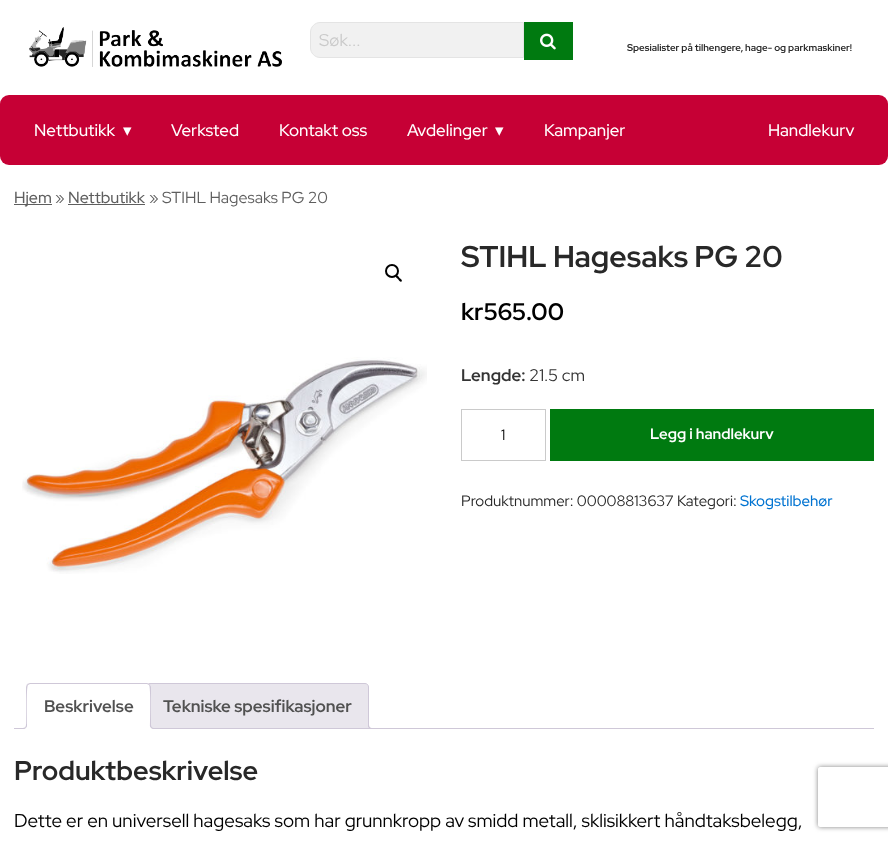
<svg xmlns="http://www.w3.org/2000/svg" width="888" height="841">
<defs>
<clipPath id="clip1"><rect x="14" y="683" width="860" height="46"/></clipPath>
<clipPath id="clip2"><path d="M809 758h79v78h-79zm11 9h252c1 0 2 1 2 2v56c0 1-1 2-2 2h-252c-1 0-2-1-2-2v-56c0-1 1-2 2-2z" clip-rule="evenodd"/></clipPath>
</defs>
<rect width="100%" height="100%" fill="#fff"/>
<image x="29" y="27" width="253" height="40" href="media/1.png"/>
<path d="M320 22.5h203.5v35h-203.5c-5 0-9.5-4.5-9.5-9.5v-16c0-5 4.5-9.5 9.5-9.5z" fill="#f1f1f1" stroke="#e4e4e4"/>
<text x="319" y="46" style="font-family:Red Hat Display;font-size:17px;fill:#cacaca">Søk...</text>
<rect x="524" y="22" width="49" height="38" fill="#007a10"/>
<image x="540" y="33" width="16" height="17" href="media/2.png"/>
<text x="627" y="51" style="font-family:Red Hat Display;font-size:9.75px;font-weight:bold;fill:#282828">Spesialister på tilhengere, hage- og parkmaskiner!</text>
<rect y="95" width="888" height="70" rx="9" fill="#c60035"/>
<text x="34" y="136" style="font-family:Red Hat Display;font-size:16.9px;font-weight:500;fill:#fff">Nettbutikk</text>
<text x="123" y="136" style="font-family:DejaVu Sans;font-size:16.9px;fill:#fff">▾</text>
<text x="171" y="136" style="font-family:Red Hat Display;font-size:16.9px;font-weight:500;fill:#fff">Verksted</text>
<text x="279" y="136" style="font-family:Red Hat Display;font-size:16.9px;font-weight:500;fill:#fff">Kontakt oss</text>
<text x="407" y="136" style="font-family:Red Hat Display;font-size:16.9px;font-weight:500;fill:#fff">Avdelinger</text>
<text x="495" y="136" style="font-family:DejaVu Sans;font-size:16.9px;fill:#fff">▾</text>
<text x="544" y="136" style="font-family:Red Hat Display;font-size:16.9px;font-weight:500;fill:#fff">Kampanjer</text>
<text x="768" y="136" style="font-family:Red Hat Display;font-size:16.9px;font-weight:500;fill:#fff">Handlekurv</text>
<rect x="14" y="204" width="38" height="1" fill="#5e5e5e"/>
<text x="14" y="203" style="font-family:Red Hat Display;font-size:16px;font-weight:500;fill:#5e5e5e">Hjem</text>
<text x="55" y="203" style="font-family:Red Hat Display;font-size:16px;fill:#5e5e5e">»</text>
<rect x="68" y="204" width="77" height="1" fill="#5e5e5e"/>
<text x="68" y="203" style="font-family:Red Hat Display;font-size:16px;font-weight:500;fill:#5e5e5e">Nettbutikk</text>
<text x="149" y="203" style="font-family:Red Hat Display;font-size:16px;fill:#5e5e5e">» STIHL Hagesaks PG 20</text>
<circle cx="392" cy="271" r="6" fill="none" stroke="#000" stroke-width="2"/>
<path d="M396 275.5c1-1 3 1.5 3.5 2.5c.5 .5 3.5 2 2 3.5c-1 1-3-1.5-3.5-2.5c-.5-.5-3-2-2-3.5z" fill="#000"/>
<image x="22" y="357" width="405" height="217" href="media/3.png"/>
<text x="461" y="267" style="font-family:Red Hat Display;font-size:30px;font-weight:bold;fill:#282828">STIHL Hagesaks PG 20</text>
<text x="461" y="320" style="font-family:Red Hat Display;font-size:24px;font-weight:bold;fill:#000">kr565.00</text>
<text x="461" y="381" style="font-family:Red Hat Display;font-size:16.9px;font-weight:bold;fill:#343434">Lengde:</text>
<text x="529" y="381" style="font-family:Red Hat Display;font-size:16.9px;fill:#343434">21.5 cm</text>
<rect x="461.5" y="409.5" width="84" height="51" fill="none" stroke="#cacaca"/>
<text x="501" y="440" style="font-family:Red Hat Display;font-size:15px;fill:#0a0a0a">1</text>
<rect x="550" y="409" width="324" height="52" fill="#007a10"/>
<text x="650" y="439" style="font-family:Red Hat Display;font-size:15px;font-weight:bold;fill:#fff">Legg i handlekurv</text>
<text x="461" y="506" style="font-family:Red Hat Display;font-size:15px;fill:#282828">Produktnummer: 00008813637 Kategori:</text>
<text x="740" y="506" style="font-family:Red Hat Display;font-size:15px;font-weight:500;fill:#0073d1">Skogstilbehør</text>
<path d="M149 683.5h216c2 0 3.5 1.5 3.5 3.5v41.5h-223v-41.5c0-2 1.5-3.5 3.5-3.5z" fill="#e9e6ed" stroke="#cfc8d8"/>
<g clip-path="url(#clip1)">
<path d="M366 726c0 3.5 1.5 5 5 5v-2c-1.5-.5-2.5-1.5-3-3z" fill="#e9e6ed"/>
</g>
<path d="M368 724h5v5c-2.5 0-5-1-5-4zm1 0h4v4c-2 0-4-.5-4-3z" fill="#cfc8d8" fill-rule="evenodd"/>
<rect x="14" y="728" width="860" height="1" fill="#cfc8d8"/>
<path d="M30 683h117c2 0 4 2 4 4v42h-125v-42c0-2 2-4 4-4z" fill="#fff"/>
<path d="M30 683l-3 1l1 1l2-1h117l2 1l1-1l-3-1z" fill="#cfc8d8"/>
<path d="M151 729v-42c0-1-1-2-1-3l-1 1c2 2 1 38 1 43z" fill="#cfc8d8"/>
<path d="M151 729l-1-1h-123l-1 1z" fill="#fff"/>
<path d="M26 729l1-1c0-5-1-41 1-43l-1-1l-1 3z" fill="#cfc8d8"/>
<text x="44" y="712" style="font-family:Red Hat Display;font-size:16.9px;font-weight:bold;fill:#515151">Beskrivelse</text>
<g clip-path="url(#clip1)">
<path d="M24 729v2c3.5 0 5-1.5 5-5h-2c-.5 1.5-1.5 2.5-3 3z" fill="#fff"/>
</g>
<path d="M22 724h5c0 3.5-1.5 5-5 5zm0 0h4c0 3-1 4-4 4z" fill="#cfc8d8" fill-rule="evenodd"/>
<g clip-path="url(#clip1)">
<path d="M148 726c0 3.5 1.5 5 5 5v-2c-1.5-.5-2.5-1.5-3-3z" fill="#fff"/>
</g>
<path d="M150 724h5v5c-2.5 0-5-1-5-4zm1 0h4v4c-2 0-4-.5-4-3z" fill="#cfc8d8" fill-rule="evenodd"/>
<text x="163" y="712" style="font-family:Red Hat Display;font-size:16.9px;font-weight:bold;fill:#515151">Tekniske spesifikasjoner</text>
<text x="14" y="780" style="font-family:Red Hat Display;font-size:27px;font-weight:bold;fill:#282828">Produktbeskrivelse</text>
<text x="14" y="827" style="font-family:Red Hat Display;font-size:18.75px;fill:#000">Dette er en universell hagesaks som har grunnkropp av smidd metall, sklisikkert håndtaksbelegg,</text>
<g clip-path="url(#clip2)">
<rect x="818" y="767" width="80" height="60" rx="2" fill="#808080" filter="blur(2.5px)"/>
</g>
</svg>
